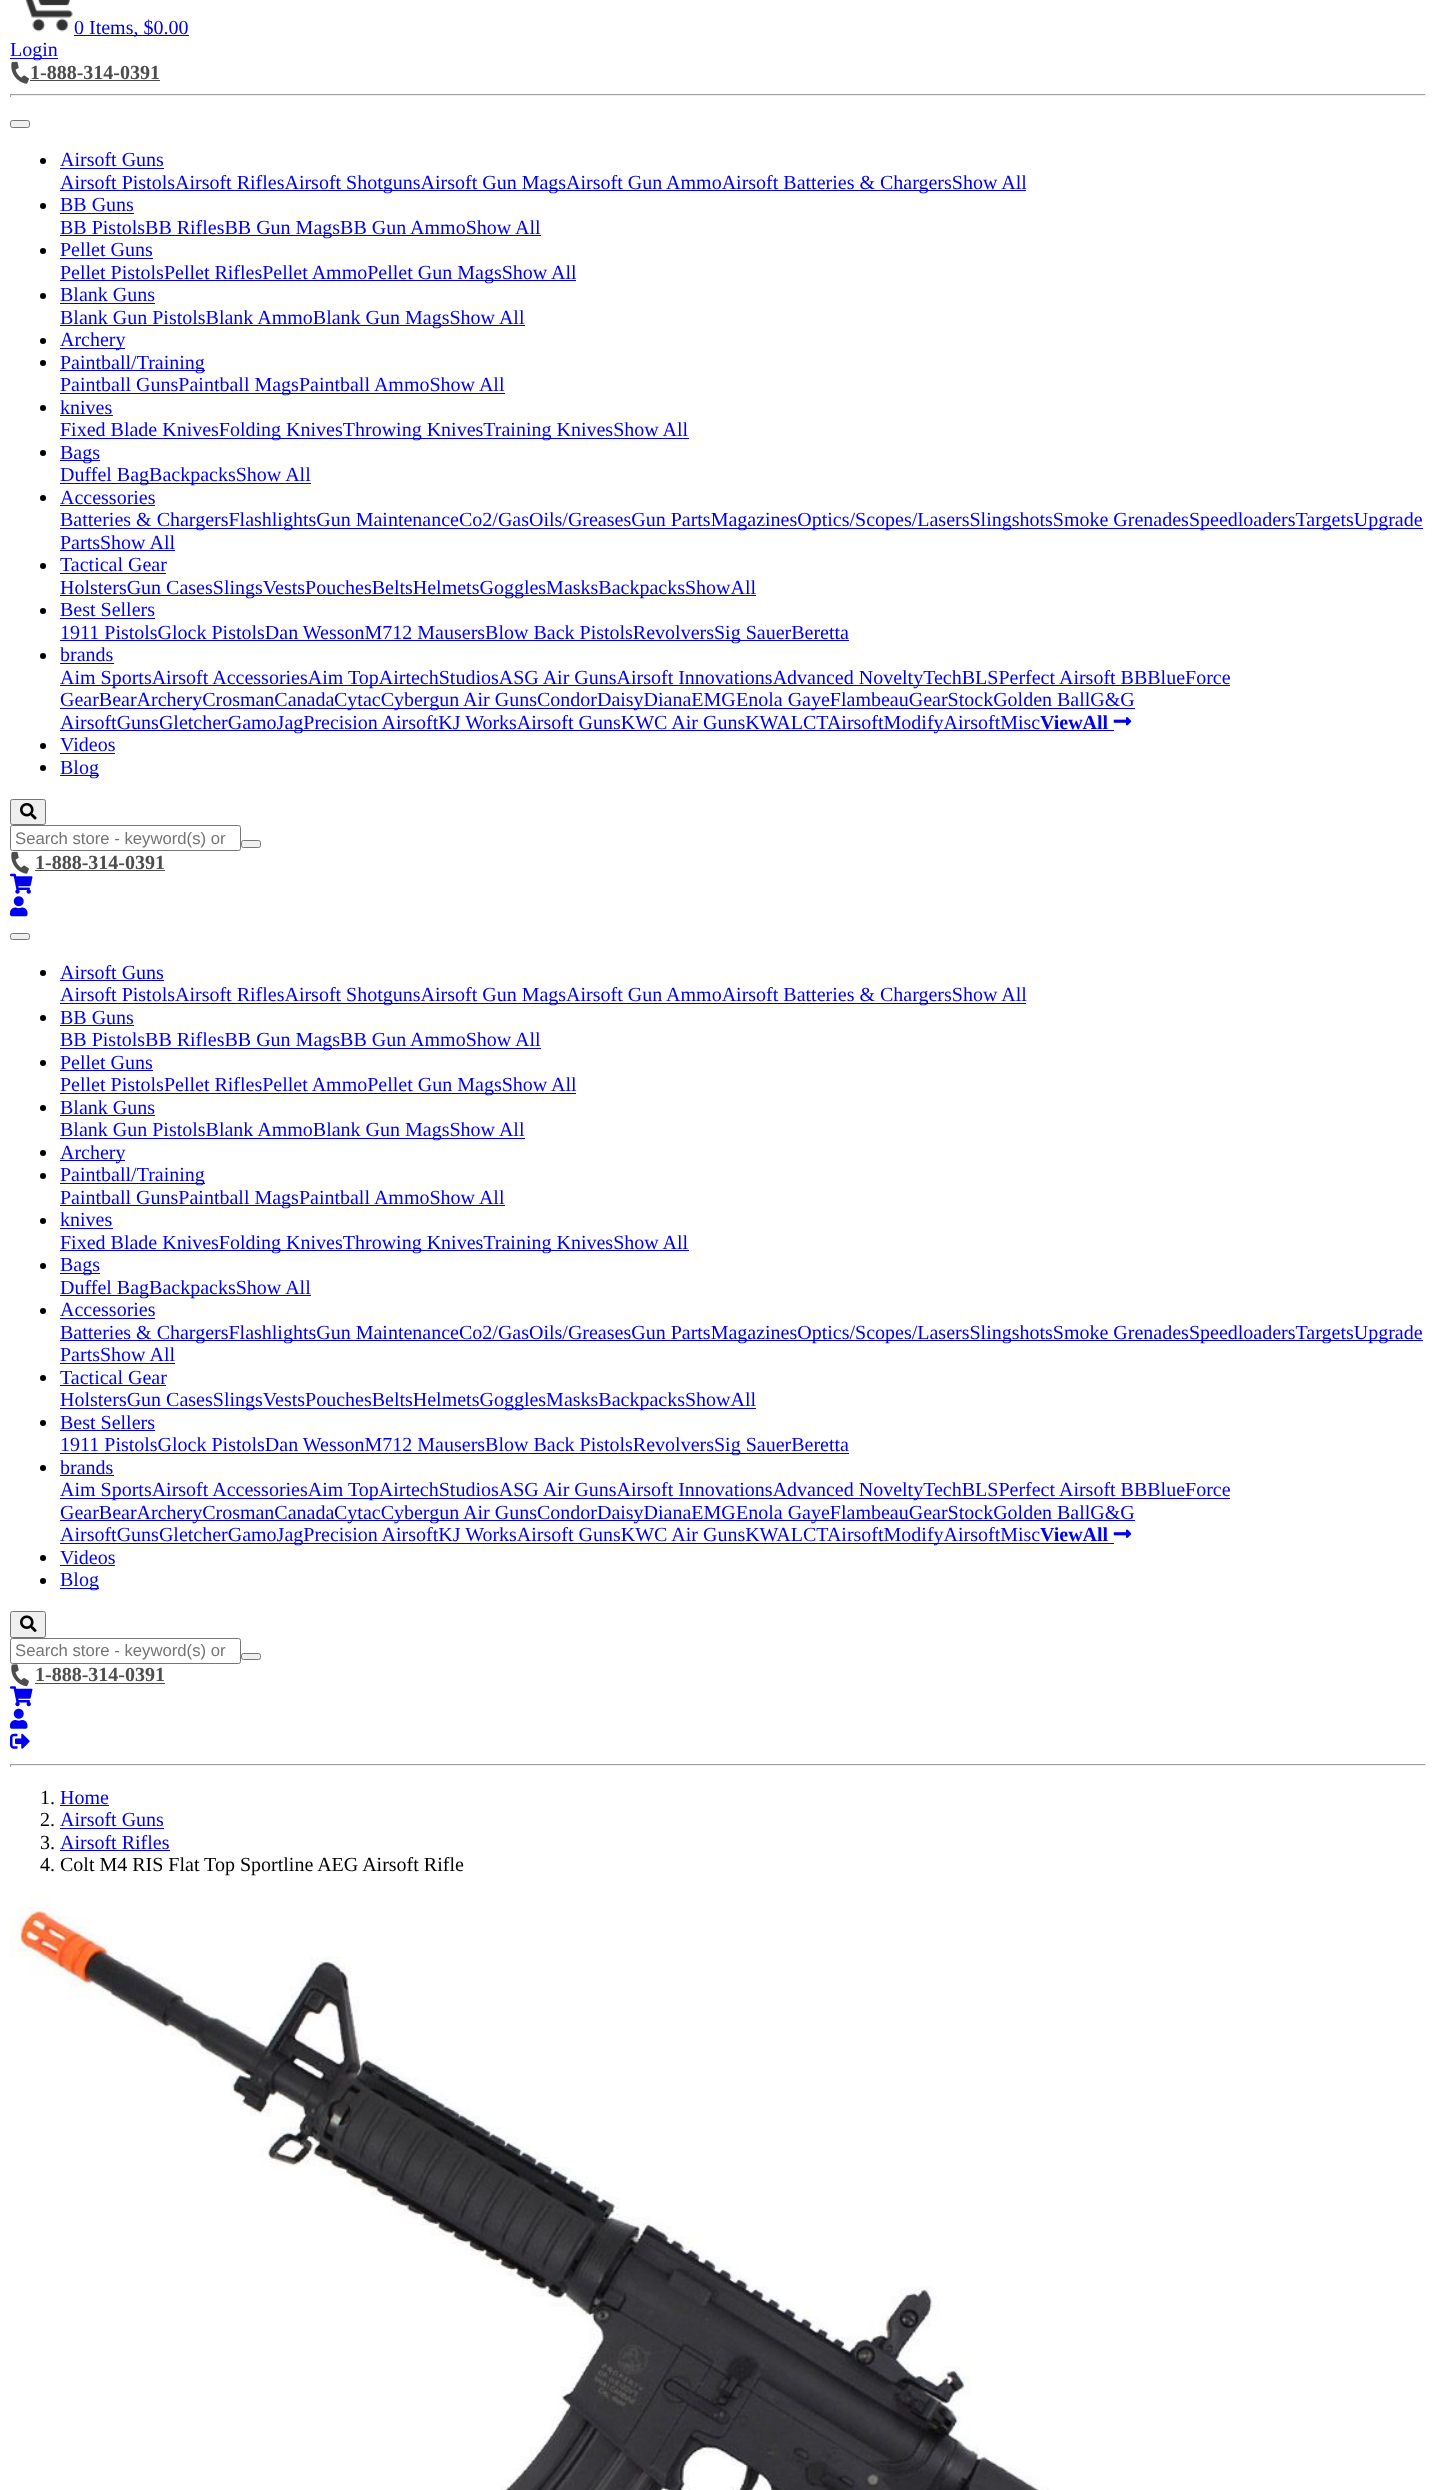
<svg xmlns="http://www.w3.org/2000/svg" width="1436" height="2490">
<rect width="100%" height="100%" fill="#fff"/>
<image x="25" y="0" width="48" height="32" href="media/1.png"/>
<rect x="74" y="35" width="115" height="1" fill="#00e"/>
<text x="74" y="34" style="font-family:Liberation Serif;font-size:20px;fill:#00e">0 Items, $0.00</text>
<rect x="10" y="58" width="48" height="1" fill="#00e"/>
<text x="10" y="56" style="font-family:Liberation Serif;font-size:20px;fill:#00e">Login</text>
<image x="11" y="61" width="18" height="23" href="media/2.png"/>
<text x="30" y="79" style="font-family:Liberation Serif;font-size:20px;font-weight:bold;fill:#4d4d4d">1-888-314-0391</text>
<rect x="30" y="80" width="130" height="1" fill="#4d4d4d"/>
<rect x="10" y="94" width="1416" height="1" fill="#9f9f9f"/>
<rect x="1425" y="94" width="1" height="3" fill="#eee"/>
<rect x="10" y="95" width="1416" height="1" fill="#eee"/>
<rect x="10" y="94" width="1" height="3" fill="#9f9f9f"/>
<rect x="10.5" y="120.5" width="19" height="7" rx="2" fill="#efefef" stroke="#767676"/>
<circle cx="43" cy="161" r="3" fill="#000"/>
<text x="60" y="166" style="font-family:Liberation Serif;font-size:20px;fill:#00e">Airsoft Guns</text>
<rect x="60" y="168" width="104" height="1" fill="#00e"/>
<rect x="60" y="190" width="891" height="1" fill="#00e"/>
<text x="60" y="189" style="font-family:Liberation Serif;font-size:20px;fill:#00e">Airsoft PistolsAirsoft RiflesAirsoft ShotgunsAirsoft Gun MagsAirsoft Gun AmmoAirsoft Batteries &amp; ChargersShow All</text>
<rect x="951" y="190" width="75" height="1" fill="#00e"/>
<circle cx="43" cy="206" r="3" fill="#000"/>
<text x="60" y="211" style="font-family:Liberation Serif;font-size:20px;fill:#00e">BB Guns</text>
<rect x="60" y="213" width="74" height="1" fill="#00e"/>
<rect x="60" y="235" width="481" height="1" fill="#00e"/>
<text x="60" y="234" style="font-family:Liberation Serif;font-size:20px;fill:#00e">BB PistolsBB RiflesBB Gun MagsBB Gun AmmoShow All</text>
<circle cx="43" cy="251" r="3" fill="#000"/>
<text x="60" y="256" style="font-family:Liberation Serif;font-size:20px;fill:#00e">Pellet Guns</text>
<rect x="60" y="258" width="93" height="1" fill="#00e"/>
<rect x="60" y="280" width="516" height="1" fill="#00e"/>
<text x="60" y="279" style="font-family:Liberation Serif;font-size:20px;fill:#00e">Pellet PistolsPellet RiflesPellet AmmoPellet Gun MagsShow All</text>
<circle cx="43" cy="296" r="3" fill="#000"/>
<text x="60" y="301" style="font-family:Liberation Serif;font-size:20px;fill:#00e">Blank Guns</text>
<rect x="60" y="303" width="95" height="1" fill="#00e"/>
<rect x="60" y="325" width="465" height="1" fill="#00e"/>
<text x="60" y="324" style="font-family:Liberation Serif;font-size:20px;fill:#00e">Blank Gun PistolsBlank AmmoBlank Gun MagsShow All</text>
<circle cx="43" cy="341" r="3" fill="#000"/>
<rect x="60" y="348" width="65" height="1" fill="#00e"/>
<text x="60" y="346" style="font-family:Liberation Serif;font-size:20px;fill:#00e">Archery</text>
<circle cx="43" cy="363" r="3" fill="#000"/>
<rect x="60" y="370" width="145" height="1" fill="#00e"/>
<text x="60" y="369" style="font-family:Liberation Serif;font-size:20px;fill:#00e">Paintball/Training</text>
<rect x="60" y="393" width="445" height="1" fill="#00e"/>
<text x="60" y="391" style="font-family:Liberation Serif;font-size:20px;fill:#00e">Paintball GunsPaintball MagsPaintball AmmoShow All</text>
<circle cx="43" cy="408" r="3" fill="#000"/>
<text x="60" y="414" style="font-family:Liberation Serif;font-size:20px;fill:#00e">knives</text>
<rect x="60" y="415" width="53" height="1" fill="#00e"/>
<rect x="60" y="438" width="629" height="1" fill="#00e"/>
<text x="60" y="436" style="font-family:Liberation Serif;font-size:20px;fill:#00e">Fixed Blade KnivesFolding KnivesThrowing KnivesTraining KnivesShow All</text>
<circle cx="43" cy="453" r="3" fill="#000"/>
<rect x="60" y="460" width="40" height="1" fill="#00e"/>
<text x="60" y="459" style="font-family:Liberation Serif;font-size:20px;fill:#00e">Bags</text>
<rect x="60" y="483" width="251" height="1" fill="#00e"/>
<text x="60" y="481" style="font-family:Liberation Serif;font-size:20px;fill:#00e">Duffel BagBackpacksShow All</text>
<circle cx="43" cy="498" r="3" fill="#000"/>
<text x="60" y="504" style="font-family:Liberation Serif;font-size:20px;fill:#00e">Accessories</text>
<rect x="60" y="505" width="95" height="1" fill="#00e"/>
<rect x="60" y="528" width="1363" height="1" fill="#00e"/>
<text x="60" y="526" style="font-family:Liberation Serif;font-size:20px;fill:#00e">Batteries &amp; ChargersFlashlightsGun MaintenanceCo2/GasOils/GreasesGun PartsMagazinesOptics/Scopes/LasersSlingshotsSmoke GrenadesSpeedloadersTargetsUpgrade</text>
<text x="60" y="549" style="font-family:Liberation Serif;font-size:20px;fill:#00e">PartsShow All</text>
<rect x="60" y="550" width="115" height="1" fill="#00e"/>
<circle cx="43" cy="566" r="3" fill="#000"/>
<text x="60" y="571" style="font-family:Liberation Serif;font-size:20px;fill:#00e">Tactical Gear</text>
<rect x="60" y="573" width="106" height="1" fill="#00e"/>
<rect x="60" y="595" width="696" height="1" fill="#00e"/>
<text x="60" y="594" style="font-family:Liberation Serif;font-size:20px;fill:#00e">HolstersGun CasesSlingsVestsPouchesBeltsHelmetsGogglesMasksBackpacksShowAll</text>
<circle cx="43" cy="611" r="3" fill="#000"/>
<text x="60" y="616" style="font-family:Liberation Serif;font-size:20px;fill:#00e">Best Sellers</text>
<rect x="60" y="618" width="95" height="1" fill="#00e"/>
<rect x="60" y="640" width="731" height="1" fill="#00e"/>
<text x="60" y="639" style="font-family:Liberation Serif;font-size:20px;fill:#00e">1911 PistolsGlock PistolsDan WessonM712 MausersBlow Back PistolsRevolversSig SauerBeretta</text>
<rect x="791" y="640" width="58" height="1" fill="#00e"/>
<circle cx="43" cy="656" r="3" fill="#000"/>
<text x="60" y="661" style="font-family:Liberation Serif;font-size:20px;fill:#00e">brands</text>
<rect x="60" y="663" width="54" height="1" fill="#00e"/>
<rect x="60" y="685" width="901" height="1" fill="#00e"/>
<text x="60" y="684" style="font-family:Liberation Serif;font-size:20px;fill:#00e">Aim SportsAirsoft AccessoriesAim TopAirtechStudiosASG Air GunsAirsoft InnovationsAdvanced NoveltyTechBLSPerfect Airsoft BBBlueForce</text>
<rect x="961" y="685" width="269" height="1" fill="#00e"/>
<rect x="60" y="708" width="274" height="1" fill="#00e"/>
<text x="60" y="706" style="font-family:Liberation Serif;font-size:20px;fill:#00e">GearBearArcheryCrosmanCanada</text>
<rect x="334" y="708" width="357" height="1" fill="#00e"/>
<text x="334" y="706" style="font-family:Liberation Serif;font-size:20px;fill:#00e">CytacCybergun Air GunsCondorDaisyDianaEMG</text>
<rect x="691" y="708" width="399" height="1" fill="#00e"/>
<text x="736" y="706" style="font-family:Liberation Serif;font-size:20px;fill:#00e">Enola GayeFlambeauGearStockGolden BallG&amp;G</text>
<rect x="60" y="730" width="940" height="1" fill="#00e"/>
<text x="60" y="729" style="font-family:Liberation Serif;font-size:20px;fill:#00e">AirsoftGunsGletcherGamoJagPrecision AirsoftKJ WorksAirsoft GunsKWC Air GunsKWALCTAirsoftModifyAirsoftMisc</text>
<rect x="1090" y="708" width="45" height="1" fill="#00e"/>
<text x="1040" y="729" style="font-family:Liberation Serif;font-size:20px;font-weight:bold;fill:#00e">ViewAll</text>
<image x="1113" y="717" width="19" height="9" href="media/3.png"/>
<rect x="1000" y="730" width="114" height="1" fill="#00e"/>
<circle cx="43" cy="746" r="3" fill="#000"/>
<text x="60" y="751" style="font-family:Liberation Serif;font-size:20px;fill:#00e">Videos</text>
<rect x="60" y="753" width="55" height="1" fill="#00e"/>
<circle cx="43" cy="768" r="3" fill="#000"/>
<rect x="60" y="775" width="39" height="1" fill="#00e"/>
<text x="60" y="774" style="font-family:Liberation Serif;font-size:20px;fill:#00e">Blog</text>
<rect x="10.5" y="799.5" width="35" height="25" rx="2" fill="#efefef" stroke="#767676"/>
<image x="20" y="802" width="17" height="18" href="media/4.png"/>
<rect x="10.5" y="825.5" width="230" height="25" rx="2" fill="none" stroke="#767676"/>
<text x="15" y="844" style="font-family:Liberation Sans;font-size:16.7px;fill:#757575">Search store - keyword(s) or</text>
<rect x="241.5" y="840.5" width="19" height="7" rx="2" fill="#efefef" stroke="#767676"/>
<image x="10" y="873" width="23" height="21" href="media/6.png"/>
<image x="11" y="851" width="18" height="23" href="media/5.png"/>
<text x="35" y="869" style="font-family:Liberation Serif;font-size:20px;font-weight:bold;fill:#4d4d4d">1-888-314-0391</text>
<rect x="35" y="870" width="130" height="1" fill="#4d4d4d"/>
<image x="10" y="896" width="18" height="21" href="media/7.png"/>
<rect x="10.5" y="933.5" width="19" height="6" rx="2" fill="#efefef" stroke="#767676"/>
<circle cx="43" cy="973" r="3" fill="#000"/>
<text x="60" y="979" style="font-family:Liberation Serif;font-size:20px;fill:#00e">Airsoft Guns</text>
<rect x="60" y="980" width="104" height="1" fill="#00e"/>
<rect x="60" y="1003" width="891" height="1" fill="#00e"/>
<text x="60" y="1001" style="font-family:Liberation Serif;font-size:20px;fill:#00e">Airsoft PistolsAirsoft RiflesAirsoft ShotgunsAirsoft Gun MagsAirsoft Gun AmmoAirsoft Batteries &amp; ChargersShow All</text>
<rect x="951" y="1003" width="75" height="1" fill="#00e"/>
<circle cx="43" cy="1018" r="3" fill="#000"/>
<text x="60" y="1024" style="font-family:Liberation Serif;font-size:20px;fill:#00e">BB Guns</text>
<rect x="60" y="1025" width="74" height="1" fill="#00e"/>
<rect x="60" y="1048" width="481" height="1" fill="#00e"/>
<text x="60" y="1046" style="font-family:Liberation Serif;font-size:20px;fill:#00e">BB PistolsBB RiflesBB Gun MagsBB Gun AmmoShow All</text>
<circle cx="43" cy="1063" r="3" fill="#000"/>
<text x="60" y="1069" style="font-family:Liberation Serif;font-size:20px;fill:#00e">Pellet Guns</text>
<rect x="60" y="1070" width="93" height="1" fill="#00e"/>
<rect x="60" y="1093" width="516" height="1" fill="#00e"/>
<text x="60" y="1091" style="font-family:Liberation Serif;font-size:20px;fill:#00e">Pellet PistolsPellet RiflesPellet AmmoPellet Gun MagsShow All</text>
<circle cx="43" cy="1108" r="3" fill="#000"/>
<text x="60" y="1114" style="font-family:Liberation Serif;font-size:20px;fill:#00e">Blank Guns</text>
<rect x="60" y="1115" width="95" height="1" fill="#00e"/>
<rect x="60" y="1138" width="465" height="1" fill="#00e"/>
<text x="60" y="1136" style="font-family:Liberation Serif;font-size:20px;fill:#00e">Blank Gun PistolsBlank AmmoBlank Gun MagsShow All</text>
<circle cx="43" cy="1153" r="3" fill="#000"/>
<rect x="60" y="1160" width="65" height="1" fill="#00e"/>
<text x="60" y="1159" style="font-family:Liberation Serif;font-size:20px;fill:#00e">Archery</text>
<circle cx="43" cy="1176" r="3" fill="#000"/>
<rect x="60" y="1183" width="145" height="1" fill="#00e"/>
<text x="60" y="1181" style="font-family:Liberation Serif;font-size:20px;fill:#00e">Paintball/Training</text>
<rect x="60" y="1205" width="445" height="1" fill="#00e"/>
<text x="60" y="1204" style="font-family:Liberation Serif;font-size:20px;fill:#00e">Paintball GunsPaintball MagsPaintball AmmoShow All</text>
<circle cx="43" cy="1221" r="3" fill="#000"/>
<text x="60" y="1226" style="font-family:Liberation Serif;font-size:20px;fill:#00e">knives</text>
<rect x="60" y="1228" width="53" height="1" fill="#00e"/>
<rect x="60" y="1250" width="629" height="1" fill="#00e"/>
<text x="60" y="1249" style="font-family:Liberation Serif;font-size:20px;fill:#00e">Fixed Blade KnivesFolding KnivesThrowing KnivesTraining KnivesShow All</text>
<circle cx="43" cy="1266" r="3" fill="#000"/>
<rect x="60" y="1273" width="40" height="1" fill="#00e"/>
<text x="60" y="1271" style="font-family:Liberation Serif;font-size:20px;fill:#00e">Bags</text>
<rect x="60" y="1295" width="251" height="1" fill="#00e"/>
<text x="60" y="1294" style="font-family:Liberation Serif;font-size:20px;fill:#00e">Duffel BagBackpacksShow All</text>
<circle cx="43" cy="1311" r="3" fill="#000"/>
<text x="60" y="1316" style="font-family:Liberation Serif;font-size:20px;fill:#00e">Accessories</text>
<rect x="60" y="1318" width="95" height="1" fill="#00e"/>
<rect x="60" y="1340" width="1363" height="1" fill="#00e"/>
<text x="60" y="1339" style="font-family:Liberation Serif;font-size:20px;fill:#00e">Batteries &amp; ChargersFlashlightsGun MaintenanceCo2/GasOils/GreasesGun PartsMagazinesOptics/Scopes/LasersSlingshotsSmoke GrenadesSpeedloadersTargetsUpgrade</text>
<text x="60" y="1361" style="font-family:Liberation Serif;font-size:20px;fill:#00e">PartsShow All</text>
<rect x="60" y="1363" width="115" height="1" fill="#00e"/>
<circle cx="43" cy="1378" r="3" fill="#000"/>
<text x="60" y="1384" style="font-family:Liberation Serif;font-size:20px;fill:#00e">Tactical Gear</text>
<rect x="60" y="1385" width="106" height="1" fill="#00e"/>
<rect x="60" y="1408" width="696" height="1" fill="#00e"/>
<text x="60" y="1406" style="font-family:Liberation Serif;font-size:20px;fill:#00e">HolstersGun CasesSlingsVestsPouchesBeltsHelmetsGogglesMasksBackpacksShowAll</text>
<circle cx="43" cy="1423" r="3" fill="#000"/>
<text x="60" y="1429" style="font-family:Liberation Serif;font-size:20px;fill:#00e">Best Sellers</text>
<rect x="60" y="1430" width="95" height="1" fill="#00e"/>
<rect x="60" y="1453" width="731" height="1" fill="#00e"/>
<text x="60" y="1451" style="font-family:Liberation Serif;font-size:20px;fill:#00e">1911 PistolsGlock PistolsDan WessonM712 MausersBlow Back PistolsRevolversSig SauerBeretta</text>
<rect x="791" y="1453" width="58" height="1" fill="#00e"/>
<circle cx="43" cy="1468" r="3" fill="#000"/>
<text x="60" y="1474" style="font-family:Liberation Serif;font-size:20px;fill:#00e">brands</text>
<rect x="60" y="1475" width="54" height="1" fill="#00e"/>
<rect x="60" y="1498" width="901" height="1" fill="#00e"/>
<text x="60" y="1496" style="font-family:Liberation Serif;font-size:20px;fill:#00e">Aim SportsAirsoft AccessoriesAim TopAirtechStudiosASG Air GunsAirsoft InnovationsAdvanced NoveltyTechBLSPerfect Airsoft BBBlueForce</text>
<rect x="961" y="1498" width="269" height="1" fill="#00e"/>
<rect x="60" y="1520" width="274" height="1" fill="#00e"/>
<text x="60" y="1519" style="font-family:Liberation Serif;font-size:20px;fill:#00e">GearBearArcheryCrosmanCanada</text>
<rect x="334" y="1520" width="357" height="1" fill="#00e"/>
<text x="334" y="1519" style="font-family:Liberation Serif;font-size:20px;fill:#00e">CytacCybergun Air GunsCondorDaisyDianaEMG</text>
<rect x="691" y="1520" width="399" height="1" fill="#00e"/>
<text x="736" y="1519" style="font-family:Liberation Serif;font-size:20px;fill:#00e">Enola GayeFlambeauGearStockGolden BallG&amp;G</text>
<rect x="60" y="1543" width="940" height="1" fill="#00e"/>
<text x="60" y="1541" style="font-family:Liberation Serif;font-size:20px;fill:#00e">AirsoftGunsGletcherGamoJagPrecision AirsoftKJ WorksAirsoft GunsKWC Air GunsKWALCTAirsoftModifyAirsoftMisc</text>
<rect x="1090" y="1520" width="45" height="1" fill="#00e"/>
<text x="1040" y="1541" style="font-family:Liberation Serif;font-size:20px;font-weight:bold;fill:#00e">ViewAll</text>
<image x="1113" y="1529" width="19" height="9" href="media/8.png"/>
<rect x="1000" y="1543" width="114" height="1" fill="#00e"/>
<circle cx="43" cy="1558" r="3" fill="#000"/>
<text x="60" y="1564" style="font-family:Liberation Serif;font-size:20px;fill:#00e">Videos</text>
<rect x="60" y="1565" width="55" height="1" fill="#00e"/>
<circle cx="43" cy="1581" r="3" fill="#000"/>
<rect x="60" y="1588" width="39" height="1" fill="#00e"/>
<text x="60" y="1586" style="font-family:Liberation Serif;font-size:20px;fill:#00e">Blog</text>
<rect x="10.5" y="1611.5" width="35" height="26" rx="2" fill="#efefef" stroke="#767676"/>
<image x="20" y="1615" width="17" height="17" href="media/9.png"/>
<rect x="10.5" y="1638.5" width="230" height="25" rx="2" fill="none" stroke="#767676"/>
<text x="15" y="1656" style="font-family:Liberation Sans;font-size:16.7px;fill:#757575">Search store - keyword(s) or</text>
<rect x="241.5" y="1653.5" width="19" height="6" rx="2" fill="#efefef" stroke="#767676"/>
<image x="10" y="1686" width="23" height="21" href="media/11.png"/>
<image x="11" y="1664" width="18" height="23" href="media/10.png"/>
<text x="35" y="1681" style="font-family:Liberation Serif;font-size:20px;font-weight:bold;fill:#4d4d4d">1-888-314-0391</text>
<rect x="35" y="1683" width="130" height="1" fill="#4d4d4d"/>
<image x="10" y="1708" width="18" height="21" href="media/12.png"/>
<image x="10" y="1733" width="20" height="16" href="media/13.png"/>
<rect x="10" y="1764" width="1416" height="1" fill="#9f9f9f"/>
<rect x="1425" y="1764" width="1" height="3" fill="#eee"/>
<rect x="10" y="1765" width="1416" height="1" fill="#eee"/>
<rect x="10" y="1764" width="1" height="3" fill="#9f9f9f"/>
<text x="40" y="1804" style="font-family:Liberation Serif;font-size:20px;fill:#000">1.</text>
<text x="60" y="1804" style="font-family:Liberation Serif;font-size:20px;fill:#00e">Home</text>
<rect x="60" y="1805" width="49" height="1" fill="#00e"/>
<text x="40" y="1826" style="font-family:Liberation Serif;font-size:20px;fill:#000">2.</text>
<text x="60" y="1826" style="font-family:Liberation Serif;font-size:20px;fill:#00e">Airsoft Guns</text>
<rect x="60" y="1828" width="104" height="1" fill="#00e"/>
<text x="40" y="1849" style="font-family:Liberation Serif;font-size:20px;fill:#000">3.</text>
<text x="60" y="1849" style="font-family:Liberation Serif;font-size:20px;fill:#00e">Airsoft Rifles</text>
<rect x="60" y="1850" width="110" height="1" fill="#00e"/>
<text x="40" y="1871" style="font-family:Liberation Serif;font-size:20px;fill:#000">4. Colt M4 RIS Flat Top Sportline AEG Airsoft Rifle</text>
<image x="10" y="1896" width="1040" height="594" href="media/14.png"/>
</svg>
